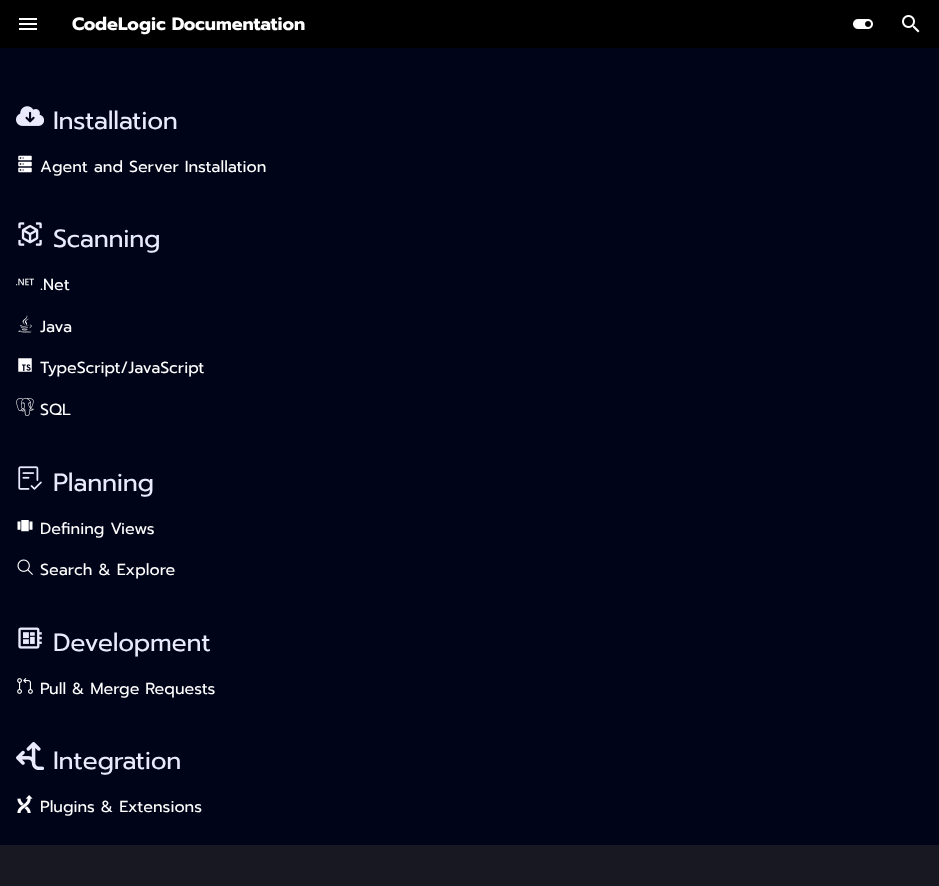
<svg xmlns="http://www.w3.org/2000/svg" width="939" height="886">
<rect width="100%" height="100%" fill="#000418"/>
<rect width="939" height="48" fill="#000"/>
<image x="19" y="18" width="18" height="12" href="media/1.png"/>
<text x="72" y="30" style="font-family:Prompt;font-size:18px;font-weight:bold;fill:#fff">CodeLogic Documentation</text>
<image x="853" y="19" width="20" height="10" href="media/2.png"/>
<image x="902" y="15" width="18" height="18" href="media/3.png"/>
<image x="16" y="106" width="28" height="20" href="media/4.png"/>
<text x="53" y="129" style="font-family:Prompt;font-size:25px;letter-spacing:-0.25px;fill:#e9ebfc">Installation</text>
<image x="18" y="155" width="14" height="18" href="media/5.png"/>
<text x="40" y="172" style="font-family:Prompt;font-size:16px;fill:#fff">Agent and Server Installation</text>
<image x="18" y="222" width="24" height="24" href="media/6.png"/>
<text x="53" y="247" style="font-family:Prompt;font-size:25px;letter-spacing:-0.25px;fill:#e9ebfc">Scanning</text>
<image x="16" y="278" width="18" height="8" href="media/7.png"/>
<text x="40" y="290" style="font-family:Prompt;font-size:16px;fill:#fff">.Net</text>
<image x="18" y="315" width="14" height="18" href="media/8.png"/>
<text x="40" y="332" style="font-family:Prompt;font-size:16px;fill:#fff">Java</text>
<image x="18" y="358" width="14" height="14" href="media/9.png"/>
<text x="40" y="373" style="font-family:Prompt;font-size:16px;fill:#fff">TypeScript/JavaScript</text>
<image x="16" y="398" width="18" height="18" href="media/10.png"/>
<text x="40" y="415" style="font-family:Prompt;font-size:16px;fill:#fff">SQL</text>
<image x="18" y="466" width="24" height="24" href="media/11.png"/>
<text x="53" y="491" style="font-family:Prompt;font-size:25px;letter-spacing:-0.25px;fill:#e9ebfc">Planning</text>
<image x="17" y="520" width="16" height="12" href="media/12.png"/>
<text x="40" y="534" style="font-family:Prompt;font-size:16px;fill:#fff">Defining Views</text>
<image x="17" y="559" width="16" height="16" href="media/13.png"/>
<text x="40" y="575" style="font-family:Prompt;font-size:16px;fill:#fff">Search &amp; Explore</text>
<image x="18" y="627" width="24" height="22" href="media/14.png"/>
<text x="53" y="651" style="font-family:Prompt;font-size:25px;letter-spacing:-0.25px;fill:#e9ebfc">Development</text>
<image x="17" y="678" width="16" height="16" href="media/15.png"/>
<text x="40" y="694" style="font-family:Prompt;font-size:16px;fill:#fff">Pull &amp; Merge Requests</text>
<image x="16" y="742" width="28" height="28" href="media/16.png"/>
<text x="53" y="769" style="font-family:Prompt;font-size:25px;letter-spacing:-0.25px;fill:#e9ebfc">Integration</text>
<image x="17" y="795" width="16" height="18" href="media/17.png"/>
<text x="40" y="812" style="font-family:Prompt;font-size:16px;fill:#fff">Plugins &amp; Extensions</text>
<rect y="845" width="939" height="41" fill="#171822"/>
</svg>
